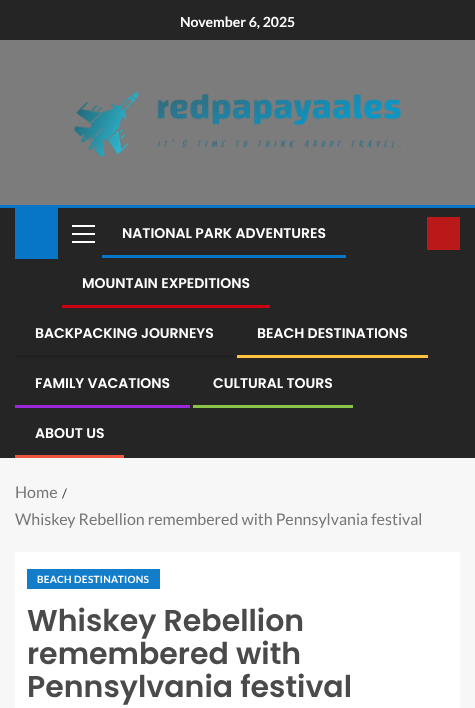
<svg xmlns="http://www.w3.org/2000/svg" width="475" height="708">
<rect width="100%" height="100%" fill="#f7f7f7"/>
<rect width="475" height="40" fill="#252525"/>
<text x="180" y="27" style="font-family:Lato;font-size:14px;font-weight:bold;fill:#fff">November 6, 2025</text>
<rect y="40" width="475" height="165" fill="#7c7c7c"/>
<image x="74" y="91" width="328" height="66" href="media/1.png"/>
<rect y="208" width="475" height="250" fill="#252525"/>
<rect y="205" width="475" height="3" fill="#0776c6"/>
<rect x="15" y="208" width="43" height="51" fill="#0776c6"/>
<rect x="72" y="233" width="23" height="2" fill="#fff"/>
<rect x="72" y="225" width="23" height="2" fill="#fff"/>
<rect x="72" y="241" width="23" height="2" fill="#fff"/>
<text x="122" y="238" style="font-family:Poppins;font-size:14px;font-weight:600;fill:#fff">NATIONAL PARK ADVENTURES</text>
<rect x="102" y="255" width="244" height="3" fill="#0776c6"/>
<text x="82" y="288" style="font-family:Poppins;font-size:14px;font-weight:600;fill:#fff">MOUNTAIN EXPEDITIONS</text>
<rect x="62" y="305" width="208" height="3" fill="#cc0010"/>
<text x="35" y="338" style="font-family:Poppins;font-size:14px;font-weight:600;fill:#fff">BACKPACKING JOURNEYS</text>
<rect x="15" y="355" width="219" height="3" fill="#202020"/>
<text x="257" y="338" style="font-family:Poppins;font-size:14px;font-weight:600;fill:#fff">BEACH DESTINATIONS</text>
<rect x="237" y="355" width="191" height="3" fill="#ffbf3f"/>
<text x="35" y="388" style="font-family:Poppins;font-size:14px;font-weight:600;fill:#fff">FAMILY VACATIONS</text>
<rect x="15" y="405" width="175" height="3" fill="#9c27d9"/>
<text x="213" y="388" style="font-family:Poppins;font-size:14px;font-weight:600;fill:#fff">CULTURAL TOURS</text>
<rect x="193" y="405" width="160" height="3" fill="#8bc34a"/>
<text x="35" y="438" style="font-family:Poppins;font-size:14px;font-weight:600;fill:#fff">ABOUT US</text>
<rect x="15" y="455" width="109" height="3" fill="#ed553f"/>
<rect x="427" y="217" width="33" height="33" fill="#bb1919"/>
<text x="15" y="498" style="font-family:Lato;font-size:16px;fill:#777">Home</text>
<text x="62" y="498" style="font-family:Lato;font-size:13px;fill:#393e46">/</text>
<text x="15" y="525" style="font-family:Lato;font-size:16px;fill:#777">Whiskey Rebellion remembered with Pennsylvania festival</text>
<rect x="15" y="552" width="445" height="156" fill="#fff"/>
<rect x="27" y="569" width="133" height="20" fill="#137dc9"/>
<text x="37" y="583" style="font-family:Lato;font-size:10px;font-weight:bold;letter-spacing:0.3px;fill:#fff">BEACH DESTINATIONS</text>
<text x="27" y="631" style="font-family:Poppins;font-size:30px;font-weight:600;fill:#4a4a4a">Whiskey Rebellion</text>
<text x="27" y="664" style="font-family:Poppins;font-size:30px;font-weight:600;fill:#4a4a4a">remembered with</text>
<text x="27" y="697" style="font-family:Poppins;font-size:30px;font-weight:600;fill:#4a4a4a">Pennsylvania festival</text>
</svg>
